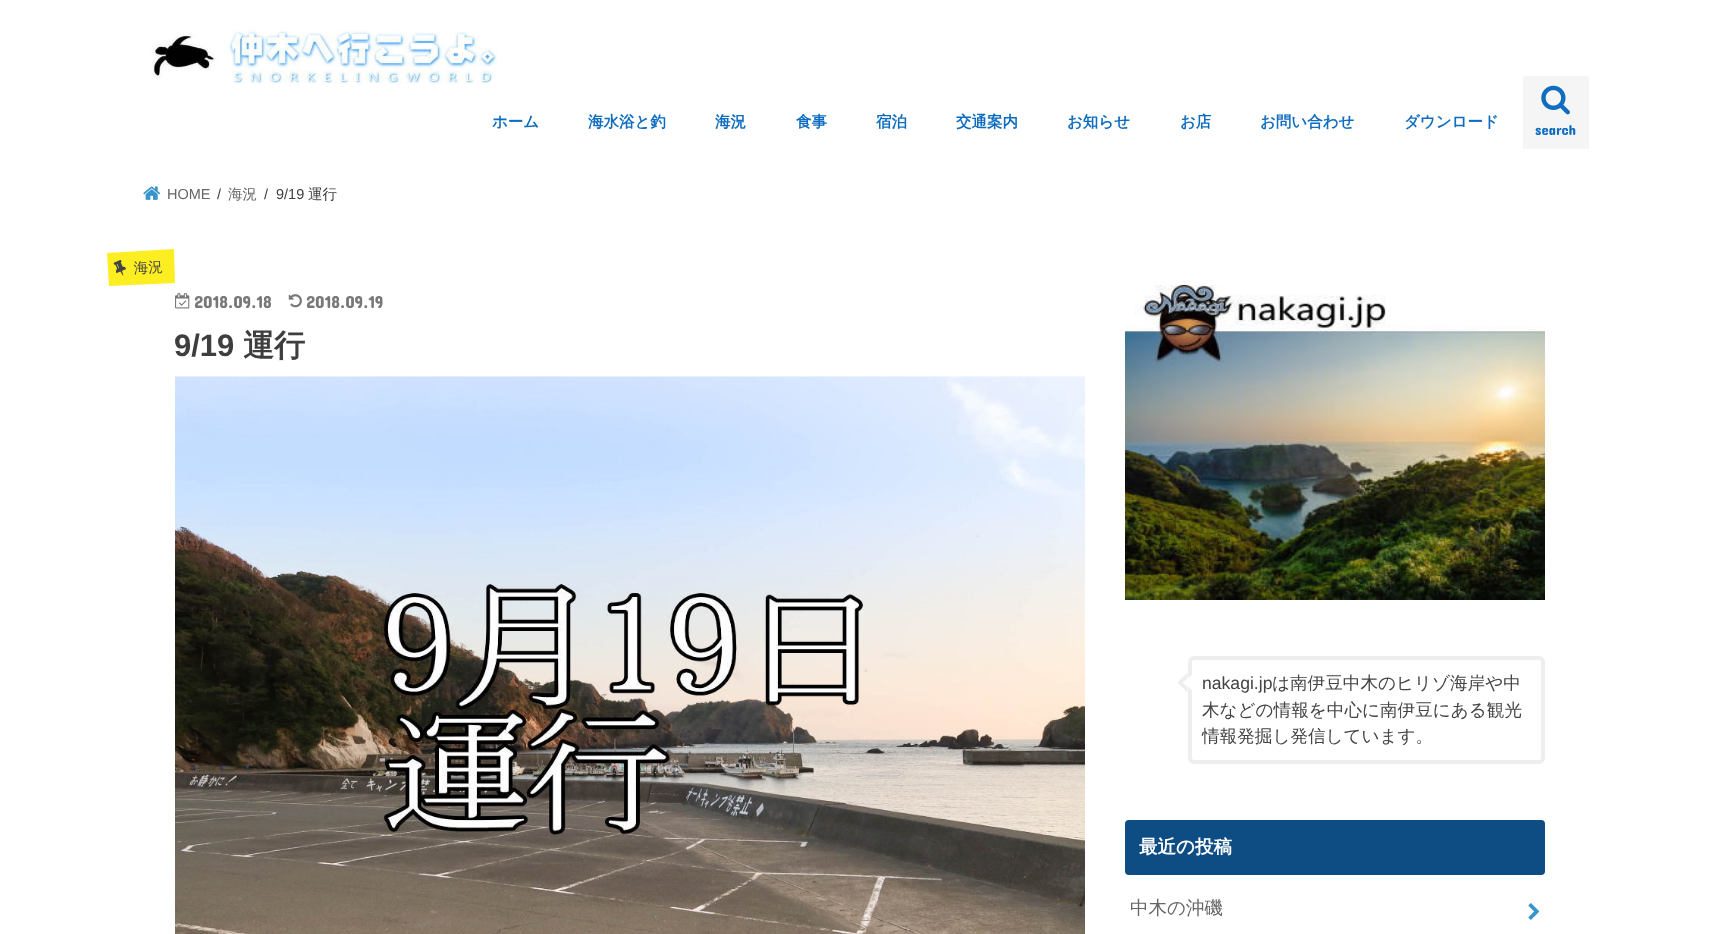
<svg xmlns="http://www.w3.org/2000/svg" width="1718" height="934">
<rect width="100%" height="100%" fill="#fff"/>
<image x="151" y="30" width="347" height="54" href="media/1.png"/>
<text x="492" y="127" style="font-family:WenQuanYi Zen Hei;font-size:15.5px;font-weight:bold;fill:#0f6dbf">ホーム</text>
<text x="588" y="127" style="font-family:WenQuanYi Zen Hei;font-size:15.5px;font-weight:bold;fill:#0f6dbf">海水浴と釣</text>
<text x="715" y="127" style="font-family:WenQuanYi Zen Hei;font-size:15.5px;font-weight:bold;fill:#0f6dbf">海況</text>
<text x="796" y="127" style="font-family:WenQuanYi Zen Hei;font-size:15.5px;font-weight:bold;fill:#0f6dbf">食事</text>
<text x="876" y="127" style="font-family:WenQuanYi Zen Hei;font-size:15.5px;font-weight:bold;fill:#0f6dbf">宿泊</text>
<text x="956" y="127" style="font-family:WenQuanYi Zen Hei;font-size:15.5px;font-weight:bold;fill:#0f6dbf">交通案内</text>
<text x="1067" y="127" style="font-family:WenQuanYi Zen Hei;font-size:15.5px;font-weight:bold;fill:#0f6dbf">お知らせ</text>
<text x="1180" y="127" style="font-family:WenQuanYi Zen Hei;font-size:15.5px;font-weight:bold;fill:#0f6dbf">お店</text>
<text x="1260" y="127" style="font-family:WenQuanYi Zen Hei;font-size:15.5px;font-weight:bold;fill:#0f6dbf">お問い合わせ</text>
<text x="1404" y="127" style="font-family:WenQuanYi Zen Hei;font-size:15.5px;font-weight:bold;fill:#0f6dbf">ダウンロード</text>
<rect x="1523" y="76" width="66" height="73" fill="#f5f5f5"/>
<image x="1541" y="85" width="29" height="30" href="media/2.png"/>
<text x="1535" y="135" style="font-family:Concert One;font-size:14.5px;fill:#0f6dbf">search</text>
<rect x="131" y="170" width="1458" height="50" fill="#ddd" filter="blur(0.5px)"/>
<rect x="131" y="170" width="1458" height="50" fill="#fff"/>
<image x="143" y="186" width="18" height="14" href="media/3.png"/>
<text x="167" y="199" style="font-family:Liberation Sans;font-size:14.5px;fill:#666">HOME</text>
<text x="217" y="199" style="font-family:Liberation Sans;font-size:14.5px;fill:#3e3e3e">/</text>
<text x="228" y="199" style="font-family:WenQuanYi Zen Hei;font-size:14.5px;font-weight:500;fill:#666">海況</text>
<text x="264" y="199" style="font-family:Liberation Sans;font-size:14.5px;fill:#3e3e3e">/</text>
<text x="276" y="199" style="font-family:Liberation Sans;font-size:14.5px;fill:#3e3e3e">9/19</text>
<text x="308" y="199" style="font-family:WenQuanYi Zen Hei;font-size:14.5px;font-weight:500;fill:#3e3e3e">運行</text>
<rect x="131" y="241" width="1458" height="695" fill="#ddd" filter="blur(0.5px)"/>
<rect x="131" y="241" width="1458" height="693" fill="#fff"/>
<path d="M107 253l67-4l1 34l-66 3z" fill="#fcee21"/>
<image x="113" y="260" width="13" height="16" href="media/4.png"/>
<text x="134" y="273" transform="rotate(-3 134 273)" style="font-family:WenQuanYi Zen Hei;font-size:14.5px;font-weight:500;fill:#444">海況</text>
<image x="175" y="293" width="15" height="16" href="media/5.png"/>
<text x="194" y="308" style="font-family:Concert One;font-size:17.5px;fill:#787878">2018.09.18</text>
<image x="288" y="294" width="14" height="14" href="media/6.png"/>
<text x="306" y="308" style="font-family:Concert One;font-size:17.5px;fill:#787878">2018.09.19</text>
<text x="174" y="356" style="font-family:Liberation Sans;font-size:31px;font-weight:bold;fill:#3e3e3e">9/19</text>
<text x="243" y="356" style="font-family:WenQuanYi Zen Hei;font-size:31px;font-weight:bold;fill:#3e3e3e">運行</text>
<image x="175" y="376" width="910" height="558" href="media/7.png"/>
<image x="1125" y="285" width="420" height="315" href="media/8.png"/>
<image x="1172" y="285" width="15" height="64" href="media/9.png"/>
<image x="1186" y="285" width="62" height="64" href="media/10.png"/>
<image x="1247" y="297" width="62" height="24" href="media/11.png"/>
<image x="1308" y="303" width="62" height="24" href="media/12.png"/>
<image x="1370" y="304" width="1" height="24" href="media/13.png"/>
<image x="1159" y="348" width="25" height="1" href="media/14.png"/>
<image x="1186" y="348" width="33" height="2" href="media/15.png"/>
<image x="1186" y="466" width="1" height="8" href="media/19.png"/>
<image x="1186" y="448" width="62" height="27" href="media/17.png"/>
<image x="1247" y="445" width="62" height="6" href="media/16.png"/>
<rect x="1308" y="445" width="1" height="1" fill="#727373"/>
<image x="1490" y="460" width="1" height="4" href="media/18.png"/>
<image x="1394" y="474" width="2" height="1" href="media/20.png"/>
<image x="1131" y="475" width="56" height="63" href="media/21.png"/>
<image x="1186" y="475" width="62" height="63" href="media/22.png"/>
<image x="1247" y="495" width="62" height="43" href="media/23.png"/>
<image x="1308" y="475" width="57" height="63" href="media/24.png"/>
<image x="1370" y="475" width="55" height="63" href="media/25.png"/>
<image x="1490" y="475" width="25" height="63" href="media/26.png"/>
<image x="1125" y="537" width="62" height="13" href="media/27.png"/>
<image x="1186" y="537" width="62" height="63" href="media/28.png"/>
<image x="1247" y="537" width="62" height="63" href="media/29.png"/>
<image x="1308" y="537" width="57" height="63" href="media/30.png"/>
<image x="1370" y="537" width="55" height="52" href="media/31.png"/>
<image x="1430" y="537" width="60" height="1" href="media/32.png"/>
<image x="1430" y="537" width="60" height="48" href="media/33.png"/>
<image x="1490" y="537" width="32" height="19" href="media/34.png"/>
<rect x="1190" y="658" width="353" height="104" rx="4" fill="none" stroke="#eee" stroke-width="4"/>
<path d="M1187.5 672.5v20l-10-10z" fill="#eee"/>
<path d="M1195 672.5v20l-12.5-10z" fill="#fff"/>
<text x="1202" y="689" style="font-family:Liberation Sans;font-size:17.6px;fill:#444">nakagi.jp</text>
<text x="1272" y="689" style="font-family:WenQuanYi Zen Hei;font-size:17.6px;font-weight:500;fill:#444">は南伊豆中木のヒリゾ海岸や中</text>
<text x="1202" y="716" style="font-family:WenQuanYi Zen Hei;font-size:17.6px;font-weight:500;fill:#444">木などの情報を中心に南伊豆にある観光</text>
<text x="1202" y="742" style="font-family:WenQuanYi Zen Hei;font-size:17.6px;font-weight:500;fill:#444">情報発掘し発信しています。</text>
<rect x="1125" y="820" width="420" height="55" rx="4" fill="#0e4d84"/>
<text x="1139" y="853" style="font-family:WenQuanYi Zen Hei;font-size:18.5px;font-weight:bold;fill:#fff">最近の投稿</text>
<text x="1130" y="914" style="font-family:WenQuanYi Zen Hei;font-size:18.5px;font-weight:500;fill:#666">中木の沖磯</text>
<image x="1528" y="903" width="12" height="17" href="media/35.png"/>
</svg>
